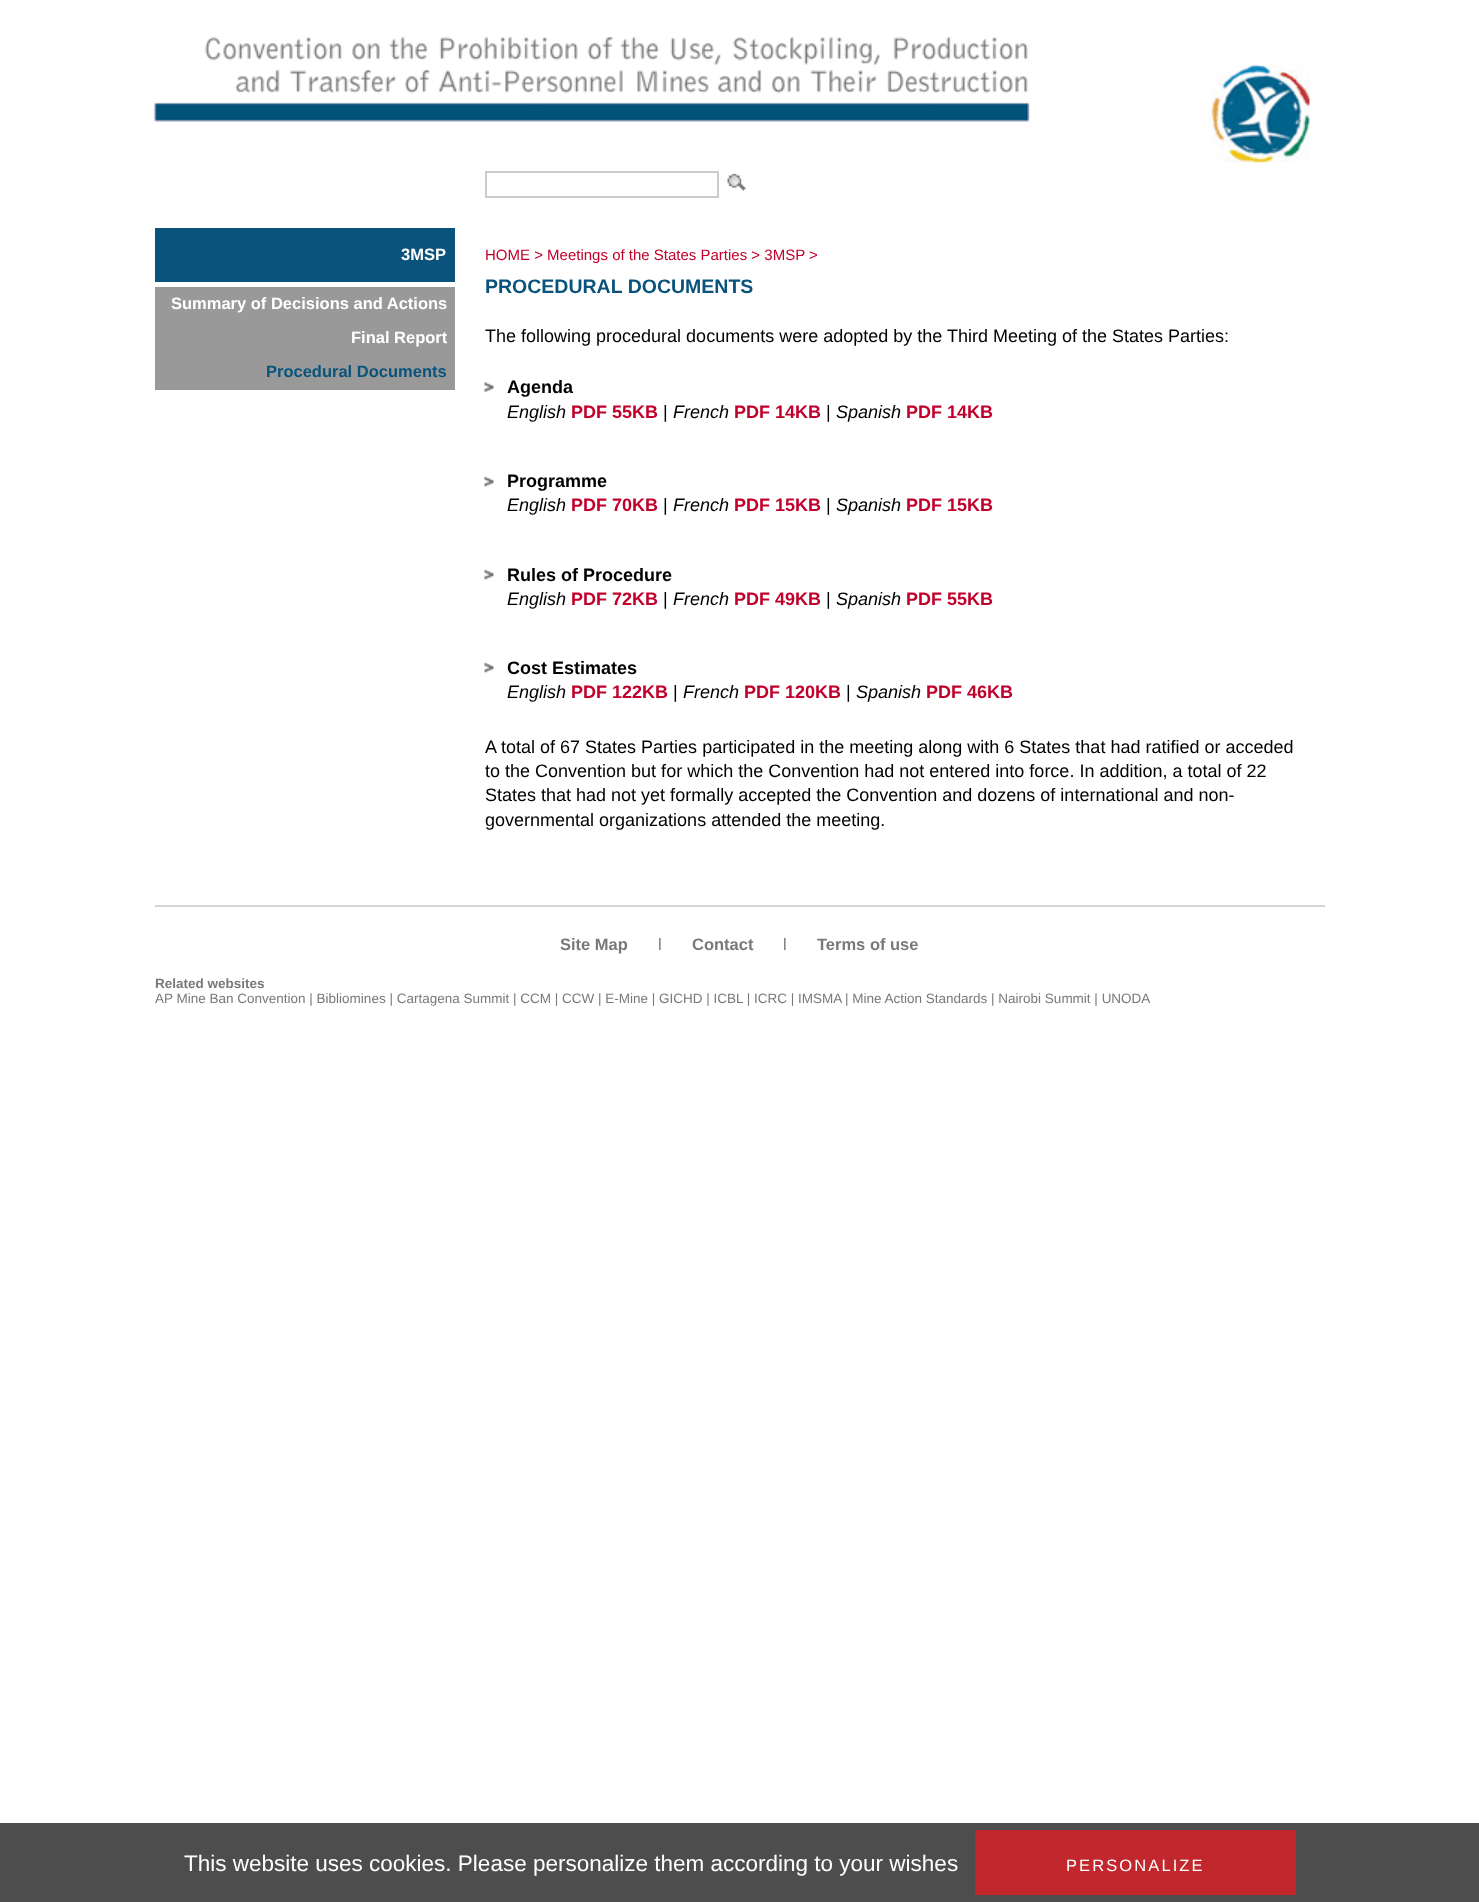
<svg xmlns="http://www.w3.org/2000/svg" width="1479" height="1902">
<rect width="100%" height="100%" fill="#fff"/>
<image x="154" y="36" width="876" height="86" href="media/1.png"/>
<image x="1210" y="64" width="100" height="99" href="media/2.png"/>
<rect x="486" y="172" width="232" height="25" fill="none" stroke="#ccc" stroke-width="2"/>
<image x="727" y="173" width="19" height="18" href="media/3.png"/>
<rect x="155" y="228" width="300" height="54" fill="#0a537c"/>
<text x="401" y="260" style="font-family:Liberation Sans;font-size:16.5px;font-weight:bold;fill:#fff">3MSP</text>
<rect x="155" y="287" width="300" height="103" fill="#999"/>
<text x="171" y="309" style="font-family:Liberation Sans;font-size:16.5px;font-weight:bold;fill:#fff">Summary of Decisions and Actions</text>
<text x="351" y="343" style="font-family:Liberation Sans;font-size:16.5px;font-weight:bold;fill:#fff">Final Report</text>
<text x="266" y="377" style="font-family:Liberation Sans;font-size:16.5px;font-weight:bold;fill:#0a537c">Procedural Documents</text>
<text x="485" y="260" style="font-family:Liberation Sans;font-size:15px;fill:#c1002b">HOME &gt; Meetings of the States Parties &gt; 3MSP &gt;</text>
<text x="485" y="293" style="font-family:Liberation Sans;font-size:19.5px;font-weight:bold;fill:#0a537c">PROCEDURAL DOCUMENTS</text>
<text x="485" y="342" style="font-family:Liberation Sans;font-size:18px;fill:#000">The following procedural documents were adopted by the Third Meeting of the States Parties:</text>
<image x="484" y="382" width="10" height="11" href="media/4.png"/>
<text x="507" y="393" style="font-family:Liberation Sans;font-size:18px;font-weight:bold;fill:#000">Agenda</text>
<text x="507" y="418" style="font-family:Liberation Sans;font-size:18px;font-style:italic;fill:#000">English</text>
<text x="571" y="418" style="font-family:Liberation Sans;font-size:18px;font-weight:bold;fill:#c1002b">PDF 55KB</text>
<text x="663" y="418" style="font-family:Liberation Sans;font-size:18px;fill:#000">|</text>
<text x="673" y="418" style="font-family:Liberation Sans;font-size:18px;font-style:italic;fill:#000">French</text>
<text x="734" y="418" style="font-family:Liberation Sans;font-size:18px;font-weight:bold;fill:#c1002b">PDF 14KB</text>
<text x="826" y="418" style="font-family:Liberation Sans;font-size:18px;fill:#000">|</text>
<text x="836" y="418" style="font-family:Liberation Sans;font-size:18px;font-style:italic;fill:#000">Spanish</text>
<text x="906" y="418" style="font-family:Liberation Sans;font-size:18px;font-weight:bold;fill:#c1002b">PDF 14KB</text>
<image x="484" y="476" width="10" height="12" href="media/5.png"/>
<text x="507" y="487" style="font-family:Liberation Sans;font-size:18px;font-weight:bold;fill:#000">Programme</text>
<text x="507" y="511" style="font-family:Liberation Sans;font-size:18px;font-style:italic;fill:#000">English</text>
<text x="571" y="511" style="font-family:Liberation Sans;font-size:18px;font-weight:bold;fill:#c1002b">PDF 70KB</text>
<text x="663" y="511" style="font-family:Liberation Sans;font-size:18px;fill:#000">|</text>
<text x="673" y="511" style="font-family:Liberation Sans;font-size:18px;font-style:italic;fill:#000">French</text>
<text x="734" y="511" style="font-family:Liberation Sans;font-size:18px;font-weight:bold;fill:#c1002b">PDF 15KB</text>
<text x="826" y="511" style="font-family:Liberation Sans;font-size:18px;fill:#000">|</text>
<text x="836" y="511" style="font-family:Liberation Sans;font-size:18px;font-style:italic;fill:#000">Spanish</text>
<text x="906" y="511" style="font-family:Liberation Sans;font-size:18px;font-weight:bold;fill:#c1002b">PDF 15KB</text>
<image x="484" y="569" width="10" height="12" href="media/5.png"/>
<text x="507" y="581" style="font-family:Liberation Sans;font-size:18px;font-weight:bold;fill:#000">Rules of Procedure</text>
<text x="507" y="605" style="font-family:Liberation Sans;font-size:18px;font-style:italic;fill:#000">English</text>
<text x="571" y="605" style="font-family:Liberation Sans;font-size:18px;font-weight:bold;fill:#c1002b">PDF 72KB</text>
<text x="663" y="605" style="font-family:Liberation Sans;font-size:18px;fill:#000">|</text>
<text x="673" y="605" style="font-family:Liberation Sans;font-size:18px;font-style:italic;fill:#000">French</text>
<text x="734" y="605" style="font-family:Liberation Sans;font-size:18px;font-weight:bold;fill:#c1002b">PDF 49KB</text>
<text x="826" y="605" style="font-family:Liberation Sans;font-size:18px;fill:#000">|</text>
<text x="836" y="605" style="font-family:Liberation Sans;font-size:18px;font-style:italic;fill:#000">Spanish</text>
<text x="906" y="605" style="font-family:Liberation Sans;font-size:18px;font-weight:bold;fill:#c1002b">PDF 55KB</text>
<image x="484" y="662" width="10" height="12" href="media/5.png"/>
<text x="507" y="674" style="font-family:Liberation Sans;font-size:18px;font-weight:bold;fill:#000">Cost Estimates</text>
<text x="507" y="698" style="font-family:Liberation Sans;font-size:18px;font-style:italic;fill:#000">English</text>
<text x="571" y="698" style="font-family:Liberation Sans;font-size:18px;font-weight:bold;fill:#c1002b">PDF 122KB</text>
<text x="673" y="698" style="font-family:Liberation Sans;font-size:18px;fill:#000">|</text>
<text x="683" y="698" style="font-family:Liberation Sans;font-size:18px;font-style:italic;fill:#000">French</text>
<text x="744" y="698" style="font-family:Liberation Sans;font-size:18px;font-weight:bold;fill:#c1002b">PDF 120KB</text>
<text x="846" y="698" style="font-family:Liberation Sans;font-size:18px;fill:#000">|</text>
<text x="856" y="698" style="font-family:Liberation Sans;font-size:18px;font-style:italic;fill:#000">Spanish</text>
<text x="926" y="698" style="font-family:Liberation Sans;font-size:18px;font-weight:bold;fill:#c1002b">PDF 46KB</text>
<text x="485" y="753" style="font-family:Liberation Sans;font-size:18px;fill:#000">A total of 67 States Parties participated in the meeting along with 6 States that had ratified or acceded</text>
<text x="485" y="777" style="font-family:Liberation Sans;font-size:18px;fill:#000">to the Convention but for which the Convention had not entered into force. In addition, a total of 22</text>
<text x="485" y="801" style="font-family:Liberation Sans;font-size:18px;fill:#000">States that had not yet formally accepted the Convention and dozens of international and non-</text>
<text x="485" y="826" style="font-family:Liberation Sans;font-size:18px;fill:#000">governmental organizations attended the meeting.</text>
<rect x="155" y="905" width="1170" height="2" fill="#d5d5d5"/>
<text x="560" y="950" style="font-family:Liberation Sans;font-size:16.5px;font-weight:bold;fill:#797979">Site Map</text>
<text x="658" y="950" style="font-family:Liberation Sans;font-size:16.5px;fill:#797979">l</text>
<text x="692" y="950" style="font-family:Liberation Sans;font-size:16.5px;font-weight:bold;fill:#797979">Contact</text>
<text x="783" y="950" style="font-family:Liberation Sans;font-size:16.5px;fill:#797979">l</text>
<text x="817" y="950" style="font-family:Liberation Sans;font-size:16.5px;font-weight:bold;fill:#797979">Terms of use</text>
<text x="155" y="988" style="font-family:Liberation Sans;font-size:13.5px;font-weight:bold;fill:#797979">Related websites</text>
<text x="155" y="1003" style="font-family:Liberation Sans;font-size:13.5px;fill:#797979">AP Mine Ban Convention | Bibliomines | Cartagena Summit | CCM | CCW | E-Mine | GICHD | ICBL | ICRC | IMSMA</text>
<text x="845" y="1003" style="font-family:Liberation Sans;font-size:13.5px;fill:#797979">| Mine Action Standards | Nairobi Summit | UNODA</text>
<rect y="1823" width="1479" height="79" fill="#4d4d4d"/>
<text x="184" y="1871" style="font-family:Liberation Sans;font-size:22.5px;fill:#fff">This website uses cookies. Please personalize them according to your wishes</text>
<rect x="975" y="1830" width="321" height="65" fill="#c1272d"/>
<text x="1066" y="1871" style="font-family:Liberation Sans;font-size:16.5px;letter-spacing:2.1px;fill:#fff">PERSONALIZE</text>
</svg>
